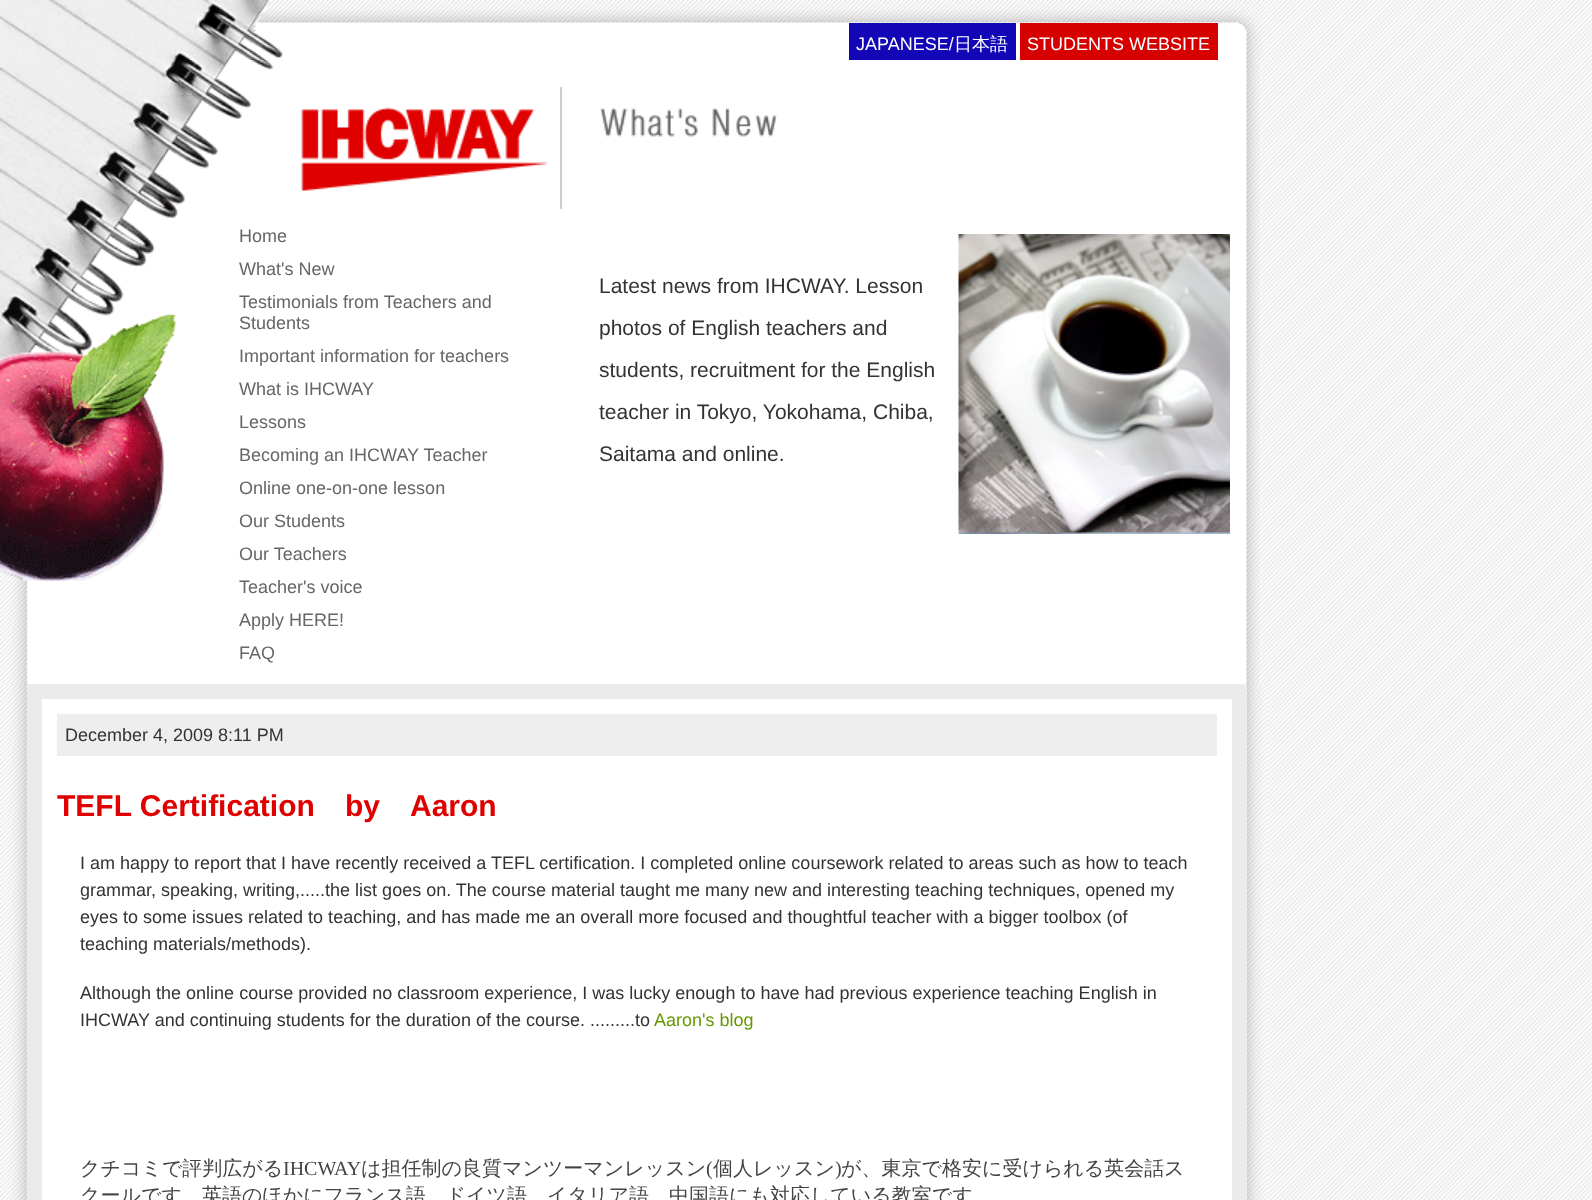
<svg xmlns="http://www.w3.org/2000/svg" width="1592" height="1200">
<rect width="100%" height="100%" fill="#fff"/>
<image x="1260" y="0" width="332" height="1200" href="media/1.png"/>
<image x="232" y="0" width="1036" height="60" href="media/2.png"/>
<image x="0" y="0" width="283" height="60" href="media/3.png"/>
<image x="253" y="5" width="16" height="26" href="media/4.png"/>
<rect x="849" y="23" width="167" height="37" fill="#1206b6"/>
<text x="856" y="50" style="font-family:Liberation Sans;font-size:18px;fill:#fff">JAPANESE/</text>
<text x="954" y="50" style="font-family:WenQuanYi Zen Hei;font-size:18px;font-weight:500;fill:#fff">日本語</text>
<rect x="1020" y="23" width="198" height="37" fill="#d60000"/>
<text x="1027" y="50" style="font-family:Liberation Sans;font-size:18px;fill:#fff">STUDENTS WEBSITE</text>
<image x="0" y="60" width="1260" height="624" href="media/5.png"/>
<image x="0" y="60" width="274" height="521" href="media/6.png"/>
<image x="301" y="107" width="247" height="84" href="media/7.png"/>
<rect x="560" y="87" width="2" height="122" fill="#ccc"/>
<text x="239" y="242" style="font-family:Liberation Sans;font-size:18px;fill:#666">Home</text>
<text x="239" y="275" style="font-family:Liberation Sans;font-size:18px;fill:#666">What's New</text>
<text x="239" y="308" style="font-family:Liberation Sans;font-size:18px;fill:#666">Testimonials from Teachers and</text>
<text x="239" y="329" style="font-family:Liberation Sans;font-size:18px;fill:#666">Students</text>
<text x="239" y="362" style="font-family:Liberation Sans;font-size:18px;fill:#666">Important information for teachers</text>
<text x="239" y="395" style="font-family:Liberation Sans;font-size:18px;fill:#666">What is IHCWAY</text>
<text x="239" y="428" style="font-family:Liberation Sans;font-size:18px;fill:#666">Lessons</text>
<text x="239" y="461" style="font-family:Liberation Sans;font-size:18px;fill:#666">Becoming an IHCWAY Teacher</text>
<text x="239" y="494" style="font-family:Liberation Sans;font-size:18px;fill:#666">Online one-on-one lesson</text>
<text x="239" y="527" style="font-family:Liberation Sans;font-size:18px;fill:#666">Our Students</text>
<text x="239" y="560" style="font-family:Liberation Sans;font-size:18px;fill:#666">Our Teachers</text>
<text x="239" y="593" style="font-family:Liberation Sans;font-size:18px;fill:#666">Teacher's voice</text>
<text x="239" y="626" style="font-family:Liberation Sans;font-size:18px;fill:#666">Apply HERE!</text>
<text x="239" y="659" style="font-family:Liberation Sans;font-size:18px;fill:#666">FAQ</text>
<image x="600" y="107" width="177" height="30" href="media/8.png"/>
<image x="958" y="234" width="272" height="300" href="media/9.png"/>
<text x="599" y="293" style="font-family:Liberation Sans;font-size:21px;fill:#333">Latest news from IHCWAY. Lesson</text>
<text x="599" y="335" style="font-family:Liberation Sans;font-size:21px;fill:#333">photos of English teachers and</text>
<text x="599" y="377" style="font-family:Liberation Sans;font-size:21px;fill:#333">students, recruitment for the English</text>
<text x="599" y="419" style="font-family:Liberation Sans;font-size:21px;fill:#333">teacher in Tokyo, Yokohama, Chiba,</text>
<text x="599" y="461" style="font-family:Liberation Sans;font-size:21px;fill:#333">Saitama and online.</text>
<image x="0" y="684" width="1268" height="516" href="media/10.png"/>
<rect x="27" y="684" width="1220" height="516" fill="#ebebeb"/>
<rect x="42" y="699" width="1190" height="501" fill="#fff"/>
<rect x="57" y="714" width="1160" height="42" fill="#eee"/>
<text x="65" y="741" style="font-family:Liberation Sans;font-size:18px;fill:#333">December 4, 2009 8:11 PM</text>
<text x="57" y="816" style="font-family:Liberation Sans;font-size:30px;font-weight:bold;fill:#df0000">TEFL Certification</text>
<text x="345" y="816" style="font-family:Liberation Sans;font-size:30px;font-weight:bold;fill:#df0000">by</text>
<text x="410" y="816" style="font-family:Liberation Sans;font-size:30px;font-weight:bold;fill:#df0000">Aaron</text>
<text x="80" y="869" style="font-family:Liberation Sans;font-size:18px;fill:#333">I am happy to report that I have recently received a TEFL certification. I completed online coursework related to areas such as how to teach</text>
<text x="80" y="896" style="font-family:Liberation Sans;font-size:18px;fill:#333">grammar, speaking, writing,.....the list goes on. The course material taught me many new and interesting teaching techniques, opened my</text>
<text x="80" y="923" style="font-family:Liberation Sans;font-size:18px;fill:#333">eyes to some issues related to teaching, and has made me an overall more focused and thoughtful teacher with a bigger toolbox (of</text>
<text x="80" y="950" style="font-family:Liberation Sans;font-size:18px;fill:#333">teaching materials/methods).</text>
<text x="80" y="999" style="font-family:Liberation Sans;font-size:18px;fill:#333">Although the online course provided no classroom experience, I was lucky enough to have had previous experience teaching English in</text>
<text x="80" y="1026" style="font-family:Liberation Sans;font-size:18px;fill:#333">IHCWAY and continuing students for the duration of the course. .........to</text>
<text x="654" y="1026" style="font-family:Liberation Sans;font-size:18px;fill:#690">Aaron's blog</text>
<text x="80" y="1175" style="font-family:WenQuanYi Zen Hei;font-size:20px;font-weight:500;fill:#444">クチコミで評判広がる</text>
<text x="283" y="1175" style="font-family:Liberation Serif;font-size:20px;fill:#444">IHCWAY</text>
<text x="361" y="1175" style="font-family:WenQuanYi Zen Hei;font-size:20px;font-weight:500;fill:#444">は担任制の良質マンツーマンレッスン</text>
<text x="706" y="1175" style="font-family:Liberation Serif;font-size:20px;fill:#444">(</text>
<text x="713" y="1175" style="font-family:WenQuanYi Zen Hei;font-size:20px;font-weight:500;fill:#444">個人レッスン</text>
<text x="835" y="1175" style="font-family:Liberation Serif;font-size:20px;fill:#444">)</text>
<text x="841" y="1175" style="font-family:WenQuanYi Zen Hei;font-size:20px;font-weight:500;fill:#444">が、東京で格安に受けられる英会話</text>
<text x="1164" y="1175" style="font-family:WenQuanYi Zen Hei;font-size:20px;font-weight:500;fill:#444">ス</text>
<text x="80" y="1202" style="font-family:WenQuanYi Zen Hei;font-size:20px;font-weight:500;fill:#444">クールです。英語のほかにフランス語、ドイツ語、イタリア語、中国語にも対応している教室です</text>
</svg>
